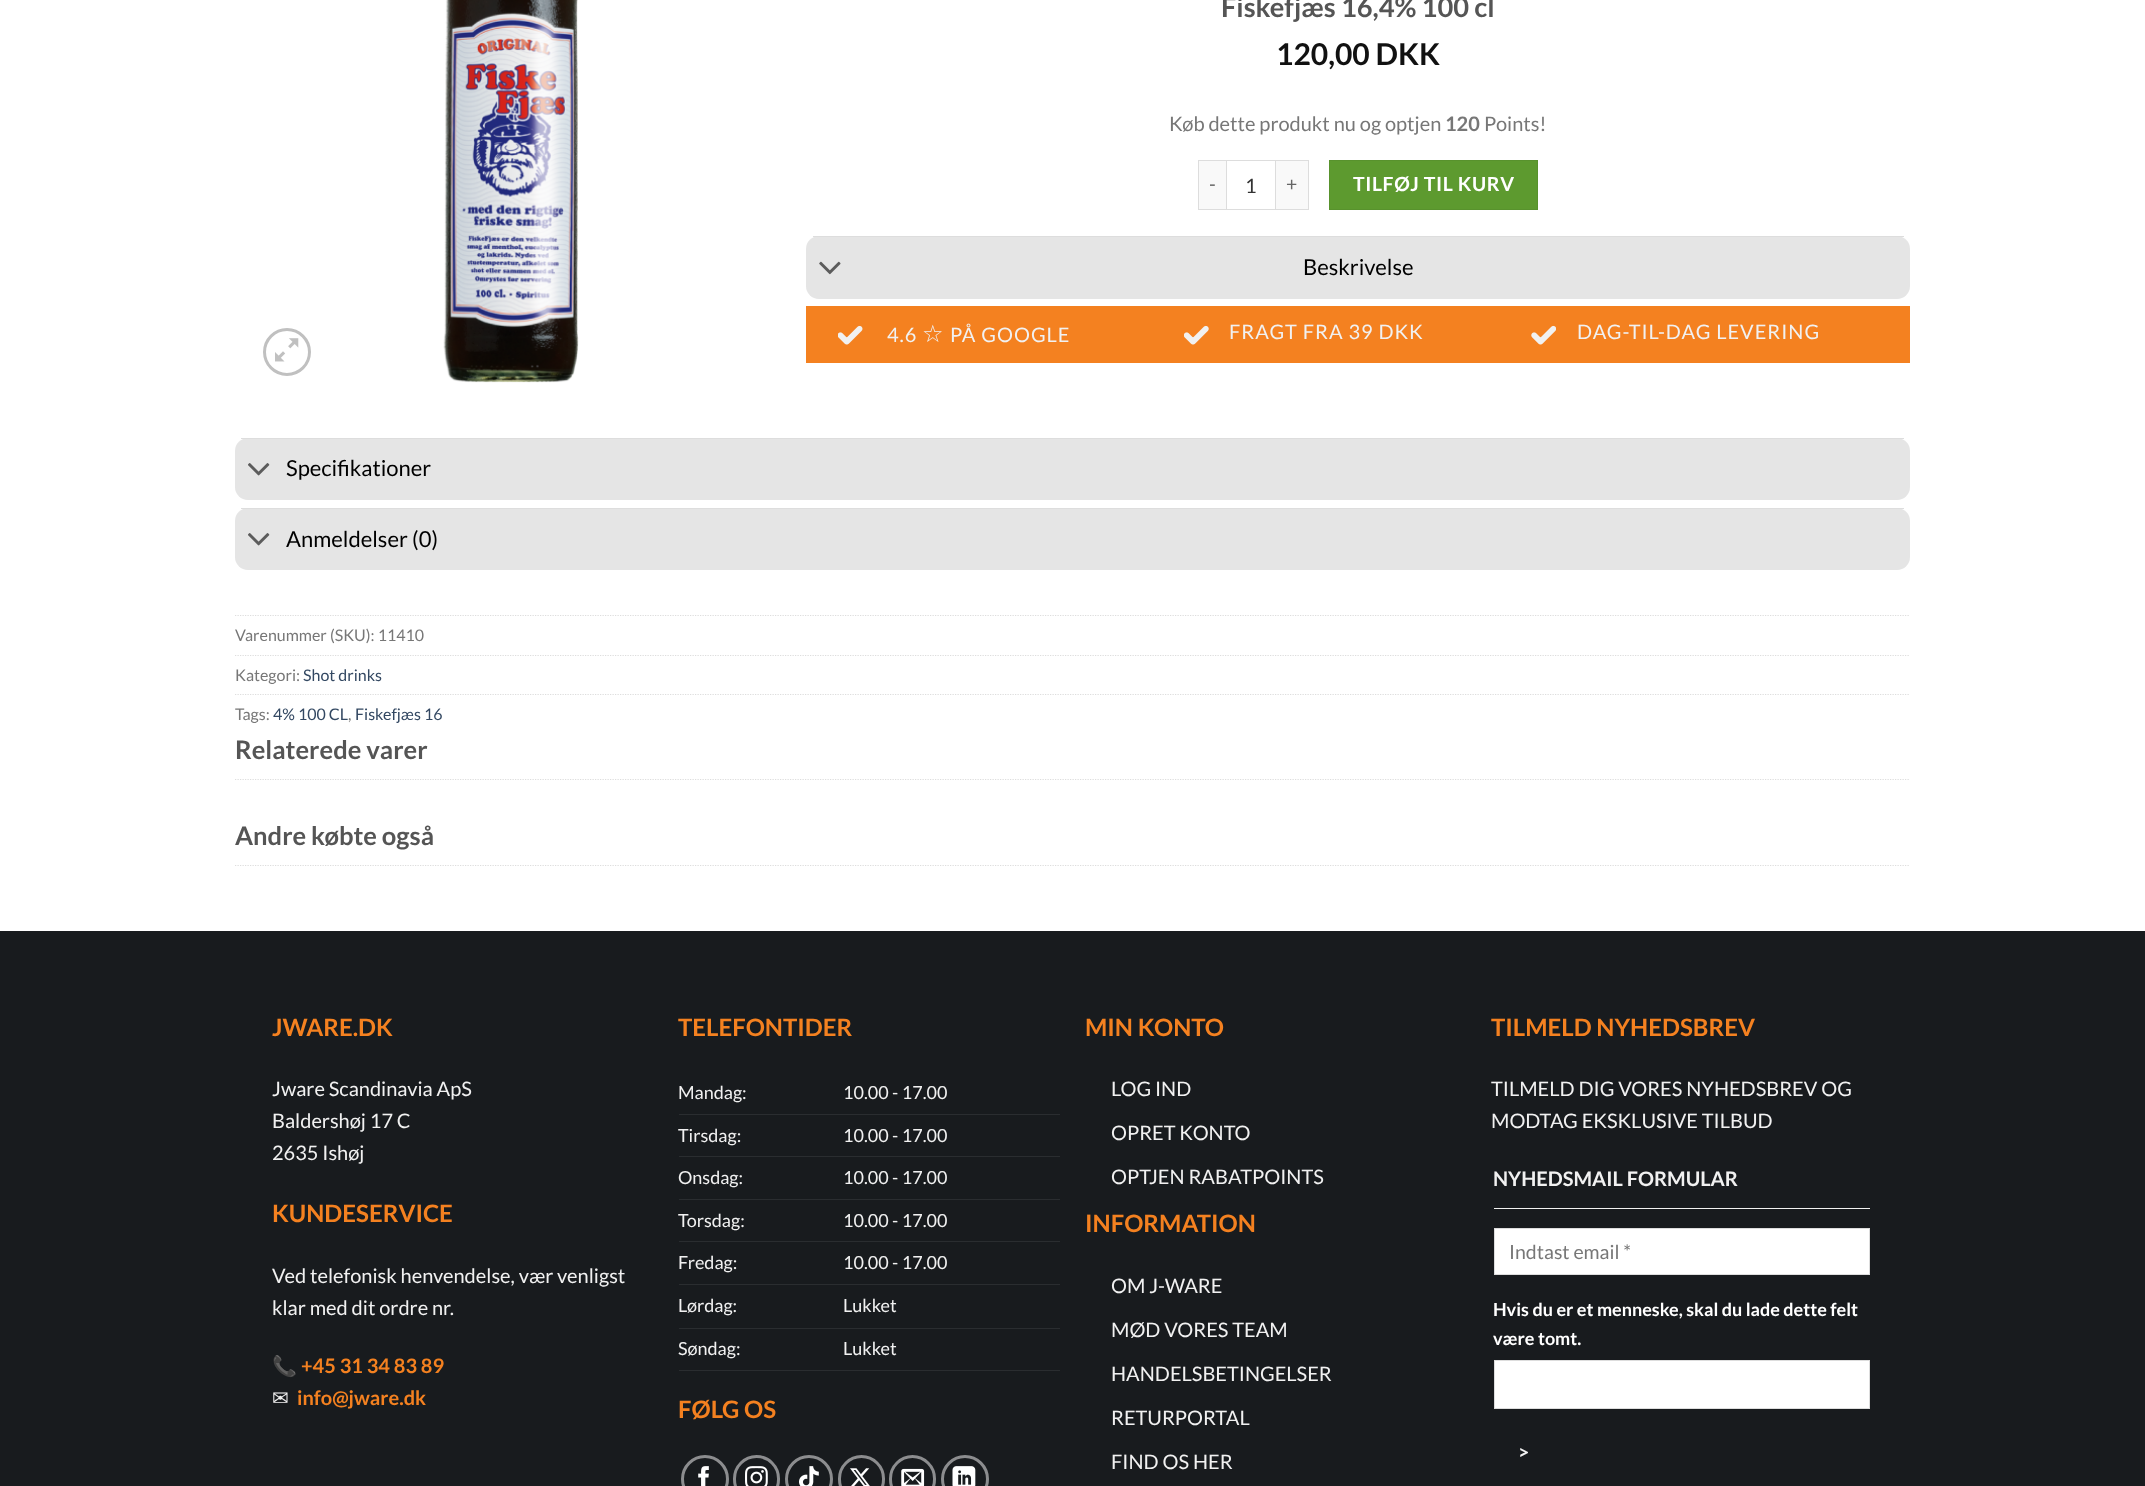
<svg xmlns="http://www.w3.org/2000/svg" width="2145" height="1486">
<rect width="100%" height="100%" fill="#fff"/>
<circle cx="287" cy="352" r="22.5" fill="none" stroke="#c0c0c0" stroke-width="3"/>
<image x="275" y="338" width="24" height="24" href="media/1.png"/>
<image x="443" y="0" width="136" height="383" href="media/2.png"/>
<text x="1221" y="17" style="font-family:Lato;font-size:27.25px;font-weight:bold;fill:#555">Fiskefjæs 16,4% 100 cl</text>
<text x="1276" y="65" style="font-family:Lato;font-size:30px;font-weight:bold;fill:#111">120,00 DKK</text>
<text x="1169" y="131" style="font-family:Lato;font-size:20px;fill:#777">Køb dette produkt nu og optjen</text>
<text x="1445" y="131" style="font-family:Lato;font-size:20px;font-weight:bold;fill:#777">120</text>
<text x="1484" y="131" style="font-family:Lato;font-size:20px;fill:#777">Points!</text>
<rect x="1199" y="161" width="27" height="48" fill="#f9f9f9"/>
<rect x="1198" y="160" width="28" height="1" fill="#ddd"/>
<rect x="1198" y="209" width="28" height="1" fill="#ddd"/>
<rect x="1198" y="160" width="1" height="50" fill="#ddd"/>
<text x="1209" y="191" style="font-family:Lato;font-size:19.5px;letter-spacing:0.6px;fill:#666">-</text>
<rect x="1226.5" y="160.5" width="49" height="49" fill="none" stroke="#ddd"/>
<text x="1245" y="193" style="font-family:Lato;font-size:20px;fill:#333">1</text>
<rect x="1276" y="161" width="32" height="48" fill="#f9f9f9"/>
<rect x="1276" y="160" width="33" height="1" fill="#ddd"/>
<rect x="1308" y="160" width="1" height="50" fill="#ddd"/>
<rect x="1276" y="209" width="33" height="1" fill="#ddd"/>
<text x="1286" y="191" style="font-family:Lato;font-size:19.5px;letter-spacing:0.6px;fill:#666">+</text>
<rect x="1329.5" y="160.5" width="208" height="49" fill="#5d9a2f" stroke="#58922d"/>
<text x="1353" y="191" style="font-family:Lato;font-size:19.5px;font-weight:bold;letter-spacing:0.6px;fill:#fff">TILFØJ TIL KURV</text>
<rect x="806" y="236" width="1104" height="63" rx="13" fill="#e5e5e5"/>
<rect x="813" y="236" width="1091" height="1" fill="#ddd"/>
<image x="819" y="261" width="22" height="14" href="media/3.png"/>
<text x="1303" y="275" style="font-family:Lato;font-size:22px;fill:#000">Beskrivelse</text>
<rect x="806" y="306" width="1104" height="57" fill="#f48120"/>
<image x="838" y="325" width="25" height="20" href="media/4.png"/>
<text x="887" y="342" style="font-family:Lato;font-size:20px;letter-spacing:1px;fill:#f1f1f1">4.6</text>
<text x="922" y="342" style="font-family:DejaVu Sans;font-size:24px;letter-spacing:1px;fill:#f1f1f1">☆</text>
<text x="950" y="342" style="font-family:Lato;font-size:20px;letter-spacing:1px;fill:#f1f1f1">PÅ GOOGLE</text>
<image x="1184" y="325" width="25" height="20" href="media/5.png"/>
<text x="1229" y="339" style="font-family:Lato;font-size:20px;letter-spacing:1px;fill:#f1f1f1">FRAGT FRA 39 DKK</text>
<image x="1531" y="325" width="25" height="20" href="media/6.png"/>
<text x="1577" y="339" style="font-family:Lato;font-size:20px;letter-spacing:1px;fill:#f1f1f1">DAG-TIL-DAG LEVERING</text>
<rect x="235" y="438" width="1675" height="62" rx="13" fill="#e5e5e5"/>
<rect x="241" y="438" width="1663" height="1" fill="#ddd"/>
<image x="248" y="463" width="22" height="13" href="media/7.png"/>
<text x="286" y="476" style="font-family:Lato;font-size:22px;fill:#000">Specifikationer</text>
<rect x="235" y="508" width="1675" height="62" rx="13" fill="#e5e5e5"/>
<rect x="241" y="508" width="1663" height="1" fill="#ddd"/>
<image x="248" y="533" width="22" height="13" href="media/7.png"/>
<text x="286" y="547" style="font-family:Lato;font-size:22px;fill:#000">Anmeldelser (0)</text>
<path d="M235 615.5h1675" fill="none" stroke="#ddd" stroke-width="1.2" stroke-dasharray="1.25 1.25"/>
<text x="235" y="641" style="font-family:Lato;font-size:16px;fill:#777">Varenummer (SKU): 11410</text>
<path d="M235 655.5h1675" fill="none" stroke="#ddd" stroke-width="1.2" stroke-dasharray="1.25 1.25"/>
<text x="235" y="681" style="font-family:Lato;font-size:16px;fill:#777">Kategori:</text>
<text x="303" y="681" style="font-family:Lato;font-size:16px;fill:#334862">Shot drinks</text>
<path d="M235 694.5h1675" fill="none" stroke="#ddd" stroke-width="1.2" stroke-dasharray="1.25 1.25"/>
<text x="235" y="720" style="font-family:Lato;font-size:16px;fill:#777">Tags:</text>
<text x="273" y="720" style="font-family:Lato;font-size:16px;fill:#334862">4% 100 CL</text>
<text x="348" y="720" style="font-family:Lato;font-size:16px;fill:#777">,</text>
<text x="355" y="720" style="font-family:Lato;font-size:16px;fill:#334862">Fiskefjæs 16</text>
<text x="235" y="759" style="font-family:Lato;font-size:25.5px;font-weight:bold;fill:#555">Relaterede varer</text>
<path d="M235 779.5h1675" fill="none" stroke="#ddd" stroke-width="1.2" stroke-dasharray="1.25 1.25"/>
<text x="235" y="845" style="font-family:Lato;font-size:25.5px;font-weight:bold;fill:#555">Andre købte også</text>
<path d="M235 865.5h1675" fill="none" stroke="#ddd" stroke-width="1.2" stroke-dasharray="1.25 1.25"/>
<rect y="931" width="2145" height="555" fill="#181b1e"/>
<text x="272" y="1036" style="font-family:Lato;font-size:24px;font-weight:bold;fill:#f48120">JWARE.DK</text>
<text x="272" y="1096" style="font-family:Lato;font-size:20px;fill:#f1f1f1">Jware Scandinavia ApS</text>
<text x="272" y="1128" style="font-family:Lato;font-size:20px;fill:#f1f1f1">Baldershøj 17 C</text>
<text x="272" y="1160" style="font-family:Lato;font-size:20px;fill:#f1f1f1">2635 Ishøj</text>
<text x="272" y="1222" style="font-family:Lato;font-size:24px;font-weight:bold;fill:#f48120">KUNDESERVICE</text>
<text x="272" y="1283" style="font-family:Lato;font-size:20px;fill:#f1f1f1">Ved telefonisk henvendelse, vær venligst</text>
<text x="272" y="1315" style="font-family:Lato;font-size:20px;fill:#f1f1f1">klar med dit ordre nr.</text>
<text x="272" y="1373" style="font-family:Noto Color Emoji;font-size:20px;fill:#f1f1f1">📞</text>
<text x="301" y="1373" style="font-family:Lato;font-size:20px;font-weight:bold;fill:#f48120">+45 31 34 83 89</text>
<text x="272" y="1405" style="font-family:DejaVu Sans;font-size:20px;fill:#f1f1f1">✉</text>
<text x="297" y="1405" style="font-family:Lato;font-size:20px;font-weight:bold;fill:#f48120">info@jware.dk</text>
<text x="678" y="1036" style="font-family:Lato;font-size:24px;font-weight:bold;fill:#f48120">TELEFONTIDER</text>
<rect x="679" y="1114" width="381" height="1" fill="#2a2d30"/>
<text x="678" y="1099" style="font-family:Lato;font-size:18px;fill:#f1f1f1">Mandag:</text>
<text x="843" y="1099" style="font-family:Lato;font-size:18px;fill:#f1f1f1">10.00 - 17.00</text>
<rect x="679" y="1156" width="381" height="1" fill="#2a2d30"/>
<text x="678" y="1142" style="font-family:Lato;font-size:18px;fill:#f1f1f1">Tirsdag:</text>
<text x="843" y="1142" style="font-family:Lato;font-size:18px;fill:#f1f1f1">10.00 - 17.00</text>
<rect x="679" y="1199" width="381" height="1" fill="#2a2d30"/>
<text x="678" y="1184" style="font-family:Lato;font-size:18px;fill:#f1f1f1">Onsdag:</text>
<text x="843" y="1184" style="font-family:Lato;font-size:18px;fill:#f1f1f1">10.00 - 17.00</text>
<rect x="679" y="1241" width="381" height="1" fill="#2a2d30"/>
<text x="678" y="1227" style="font-family:Lato;font-size:18px;fill:#f1f1f1">Torsdag:</text>
<text x="843" y="1227" style="font-family:Lato;font-size:18px;fill:#f1f1f1">10.00 - 17.00</text>
<rect x="679" y="1284" width="381" height="1" fill="#2a2d30"/>
<text x="678" y="1269" style="font-family:Lato;font-size:18px;fill:#f1f1f1">Fredag:</text>
<text x="843" y="1269" style="font-family:Lato;font-size:18px;fill:#f1f1f1">10.00 - 17.00</text>
<rect x="679" y="1328" width="381" height="1" fill="#2a2d30"/>
<text x="678" y="1312" style="font-family:Lato;font-size:18px;fill:#f1f1f1">Lørdag:</text>
<text x="843" y="1312" style="font-family:Lato;font-size:18px;fill:#f1f1f1">Lukket</text>
<rect x="679" y="1370" width="381" height="1" fill="#2a2d30"/>
<text x="678" y="1355" style="font-family:Lato;font-size:18px;fill:#f1f1f1">Søndag:</text>
<text x="843" y="1355" style="font-family:Lato;font-size:18px;fill:#f1f1f1">Lukket</text>
<text x="678" y="1418" style="font-family:Lato;font-size:24px;font-weight:bold;fill:#f48120">FØLG OS</text>
<circle cx="705" cy="1479" r="22.5" fill="none" stroke="#8c8d8f" stroke-width="3"/>
<image x="698" y="1466" width="11" height="20" href="media/8.png"/>
<rect x="734.5" y="1456.5" width="44" height="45" rx="22" fill="none" stroke="#8c8d8f" stroke-width="3"/>
<image x="745" y="1466" width="23" height="20" href="media/9.png"/>
<circle cx="809" cy="1479" r="22.5" fill="none" stroke="#8c8d8f" stroke-width="3"/>
<image x="799" y="1466" width="20" height="20" href="media/10.png"/>
<rect x="839.5" y="1456.5" width="44" height="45" rx="22" fill="none" stroke="#8c8d8f" stroke-width="3"/>
<image x="850" y="1468" width="20" height="18" href="media/11.png"/>
<rect x="890.5" y="1456.5" width="44" height="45" rx="22" fill="none" stroke="#8c8d8f" stroke-width="3"/>
<image x="901" y="1468" width="24" height="18" href="media/12.png"/>
<circle cx="965" cy="1479" r="22.5" fill="none" stroke="#8c8d8f" stroke-width="3"/>
<image x="952" y="1466" width="24" height="20" href="media/13.png"/>
<text x="1085" y="1036" style="font-family:Lato;font-size:24px;font-weight:bold;fill:#f48120">MIN KONTO</text>
<text x="1111" y="1096" style="font-family:Lato;font-size:20px;fill:#f1f1f1">LOG IND</text>
<text x="1111" y="1140" style="font-family:Lato;font-size:20px;fill:#f1f1f1">OPRET KONTO</text>
<text x="1111" y="1184" style="font-family:Lato;font-size:20px;fill:#f1f1f1">OPTJEN RABATPOINTS</text>
<text x="1085" y="1232" style="font-family:Lato;font-size:24px;font-weight:bold;fill:#f48120">INFORMATION</text>
<text x="1111" y="1293" style="font-family:Lato;font-size:20px;fill:#f1f1f1">OM J-WARE</text>
<text x="1111" y="1337" style="font-family:Lato;font-size:20px;fill:#f1f1f1">MØD VORES TEAM</text>
<text x="1111" y="1381" style="font-family:Lato;font-size:20px;fill:#f1f1f1">HANDELSBETINGELSER</text>
<text x="1111" y="1425" style="font-family:Lato;font-size:20px;fill:#f1f1f1">RETURPORTAL</text>
<text x="1111" y="1469" style="font-family:Lato;font-size:20px;fill:#f1f1f1">FIND OS HER</text>
<text x="1491" y="1036" style="font-family:Lato;font-size:24px;font-weight:bold;fill:#f48120">TILMELD NYHEDSBREV</text>
<text x="1491" y="1096" style="font-family:Lato;font-size:20px;fill:#f1f1f1">TILMELD DIG VORES NYHEDSBREV OG</text>
<text x="1491" y="1128" style="font-family:Lato;font-size:20px;fill:#f1f1f1">MODTAG EKSKLUSIVE TILBUD</text>
<rect x="1494" y="1208" width="376" height="1" fill="#f1f1f1"/>
<text x="1493" y="1186" style="font-family:Lato;font-size:20px;font-weight:bold;fill:#f1f1f1">NYHEDSMAIL FORMULAR</text>
<rect x="1494.5" y="1228.5" width="375" height="46" fill="#fff" stroke="#ddd"/>
<text x="1509" y="1259" style="font-family:Lato;font-size:19.5px;fill:#777">Indtast email *</text>
<text x="1493" y="1316" style="font-family:Lato;font-size:18px;font-weight:bold;fill:#fff">Hvis du er et menneske, skal du lade dette felt</text>
<text x="1493" y="1345" style="font-family:Lato;font-size:18px;font-weight:bold;fill:#fff">være tomt.</text>
<rect x="1494.5" y="1360.5" width="375" height="48" fill="#fff" stroke="#ddd"/>
<text x="1518" y="1459" style="font-family:Lato;font-size:19.5px;font-weight:bold;letter-spacing:0.6px;fill:#f1f1f1">&gt;</text>
</svg>
